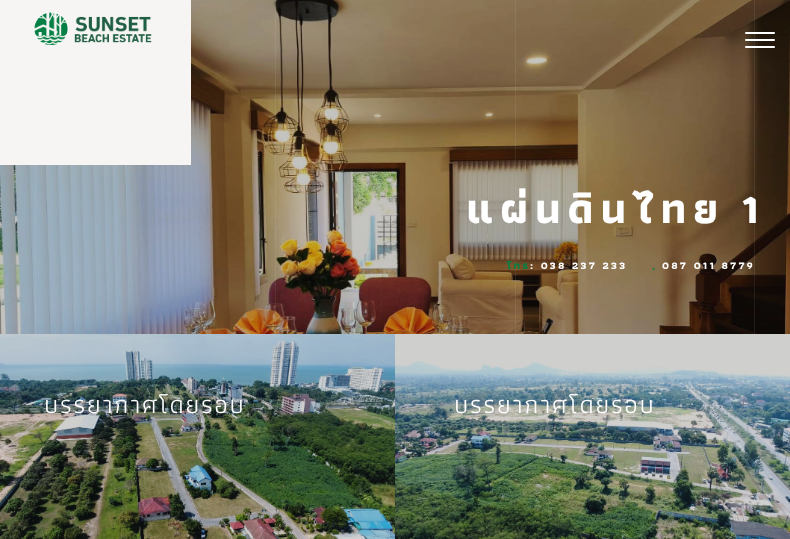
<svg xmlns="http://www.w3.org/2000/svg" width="790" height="539">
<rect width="100%" height="100%" fill="#fff"/>
<image x="0" y="0" width="790" height="334" href="media/2.png"/>
<rect width="191" height="165" fill="#f6f5f3"/>
<image x="34" y="12" width="118" height="34" href="media/1.png"/>
<rect x="754" width="1" height="334" fill="#f4f4f414"/>
<rect x="745" y="32" width="30" height="2" rx="1" fill="#fff"/>
<rect x="745" y="39" width="30" height="2" rx="1" fill="#fff"/>
<rect x="745" y="46" width="30" height="2" rx="1" fill="#fff"/>
<rect x="35" y="165" width="1" height="169" fill="#f4f4f414"/>
<rect x="275" width="1" height="334" fill="#f4f4f414"/>
<rect x="515" width="1" height="334" fill="#f4f4f414"/>
<text x="466" y="223" word-spacing="-3" style="font-family:Athiti;font-size:43px;font-weight:bold;letter-spacing:6.5px;fill:#fff">แผ่นดินไทย 1</text>
<text x="507" y="269" style="font-family:Athiti;font-size:10.75px;font-weight:bold;letter-spacing:2.2px;fill:#048045">โทร</text>
<text x="530" y="269" style="font-family:Athiti;font-size:10.75px;font-weight:bold;letter-spacing:2.2px;fill:#fff">: 038 237 233</text>
<text x="652" y="269" style="font-family:Athiti;font-size:10.75px;font-weight:bold;letter-spacing:2.2px;fill:#048045">,</text>
<text x="662" y="269" style="font-family:Athiti;font-size:10.75px;font-weight:bold;letter-spacing:2.2px;fill:#fff">087 011 8779</text>
<image x="0" y="334" width="395" height="205" href="media/3.png"/>
<text x="44" y="413" style="font-family:Athiti;font-size:25.5px;letter-spacing:1.75px;fill:#fff">บรรยากาศโดยรอบ</text>
<image x="395" y="334" width="395" height="205" href="media/4.png"/>
<text x="454" y="413" style="font-family:Athiti;font-size:25.5px;letter-spacing:1.75px;fill:#fff">บรรยากาศโดยรอบ</text>
</svg>
